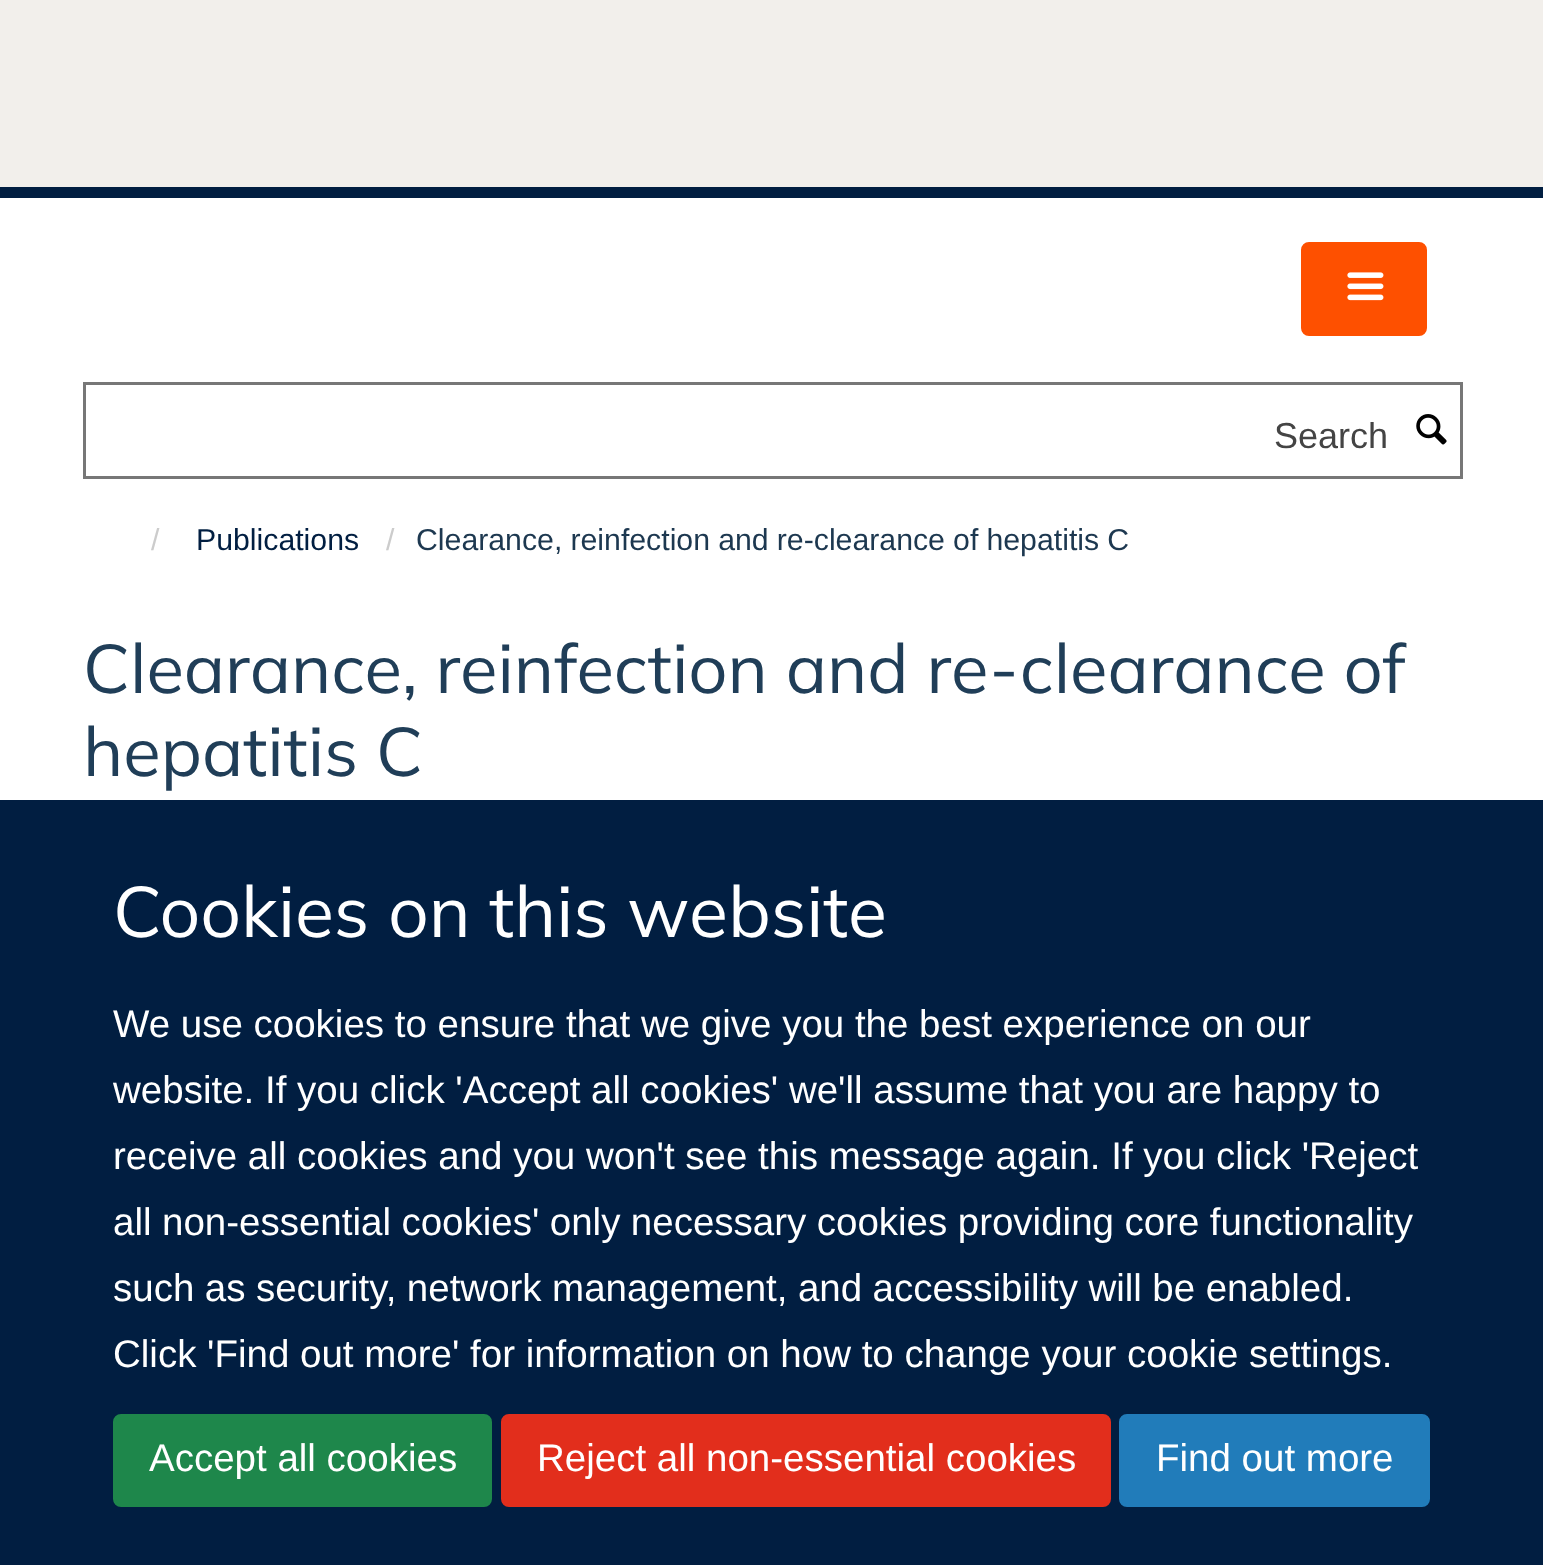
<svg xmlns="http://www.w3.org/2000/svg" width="1543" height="1565">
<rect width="100%" height="100%" fill="#fff"/>
<rect width="1543" height="187" fill="#f2efeb"/>
<rect y="187" width="1543" height="11" fill="#011e41"/>
<rect x="1302.5" y="243.5" width="123" height="91" rx="6.5" fill="#fe5000" stroke="#fe5000" stroke-width="3"/>
<image x="1347" y="272" width="37" height="29" href="media/1.png"/>
<rect x="84.5" y="383.5" width="1377" height="94" fill="none" stroke="#777" stroke-width="3"/>
<text x="1274" y="448" style="font-family:Liberation Sans;font-size:36px;fill:#444">Search</text>
<image x="1416" y="414" width="31" height="31" href="media/2.png"/>
<text x="151" y="550" style="font-family:Liberation Sans;font-size:30.25px;fill:#ccc">/</text>
<text x="196" y="550" style="font-family:Liberation Sans;font-size:30.25px;fill:#011e41">Publications</text>
<text x="386" y="550" style="font-family:Liberation Sans;font-size:30.25px;fill:#ccc">/</text>
<text x="416" y="550" word-spacing="-0.25" style="font-family:Liberation Sans;font-size:30.25px;fill:#1d3850">Clearance, reinfection and re-clearance of hepatitis C</text>
<text x="83" y="693" style="font-family:Mulish;font-size:68.75px;fill:#203e58">Clearance, reinfection and re-clearance of</text>
<text x="83" y="776" style="font-family:Mulish;font-size:68.75px;fill:#203e58">hepatitis C</text>
<rect y="800" width="1543" height="765" fill="#011e41"/>
<text x="113" y="937" style="font-family:Mulish;font-size:71.5px;fill:#fff">Cookies on this website</text>
<text x="113" y="1037" style="font-family:Liberation Sans;font-size:38.5px;fill:#fff">We use cookies to ensure that we give you the best experience on our</text>
<text x="113" y="1103" style="font-family:Liberation Sans;font-size:38.5px;fill:#fff">website. If you click 'Accept all cookies' we'll assume that you are happy to</text>
<text x="113" y="1169" style="font-family:Liberation Sans;font-size:38.5px;fill:#fff">receive all cookies and you won't see this message again. If you click 'Reject</text>
<text x="113" y="1235" word-spacing="-0.25" style="font-family:Liberation Sans;font-size:38.5px;fill:#fff">all non-essential cookies' only necessary cookies providing core functionality</text>
<text x="113" y="1301" word-spacing="-0.25" style="font-family:Liberation Sans;font-size:38.5px;fill:#fff">such as security, network management, and accessibility will be enabled.</text>
<text x="113" y="1367" style="font-family:Liberation Sans;font-size:38.5px;fill:#fff">Click 'Find out more' for information on how to change your cookie settings.</text>
<rect x="114.5" y="1415.5" width="376" height="90" rx="6.5" fill="#1e874b" stroke="#1e874b" stroke-width="3"/>
<text x="149" y="1471" style="font-family:Liberation Sans;font-size:38.5px;fill:#fff">Accept all cookies</text>
<rect x="502.5" y="1415.5" width="607" height="90" rx="6.5" fill="#e22e1c" stroke="#e22e1c" stroke-width="3"/>
<text x="537" y="1471" style="font-family:Liberation Sans;font-size:38.5px;fill:#fff">Reject all non-essential cookies</text>
<rect x="1120.5" y="1415.5" width="308" height="90" rx="6.5" fill="#217cba" stroke="#217cba" stroke-width="3"/>
<text x="1156" y="1471" style="font-family:Liberation Sans;font-size:38.5px;fill:#fff">Find out more</text>
</svg>
